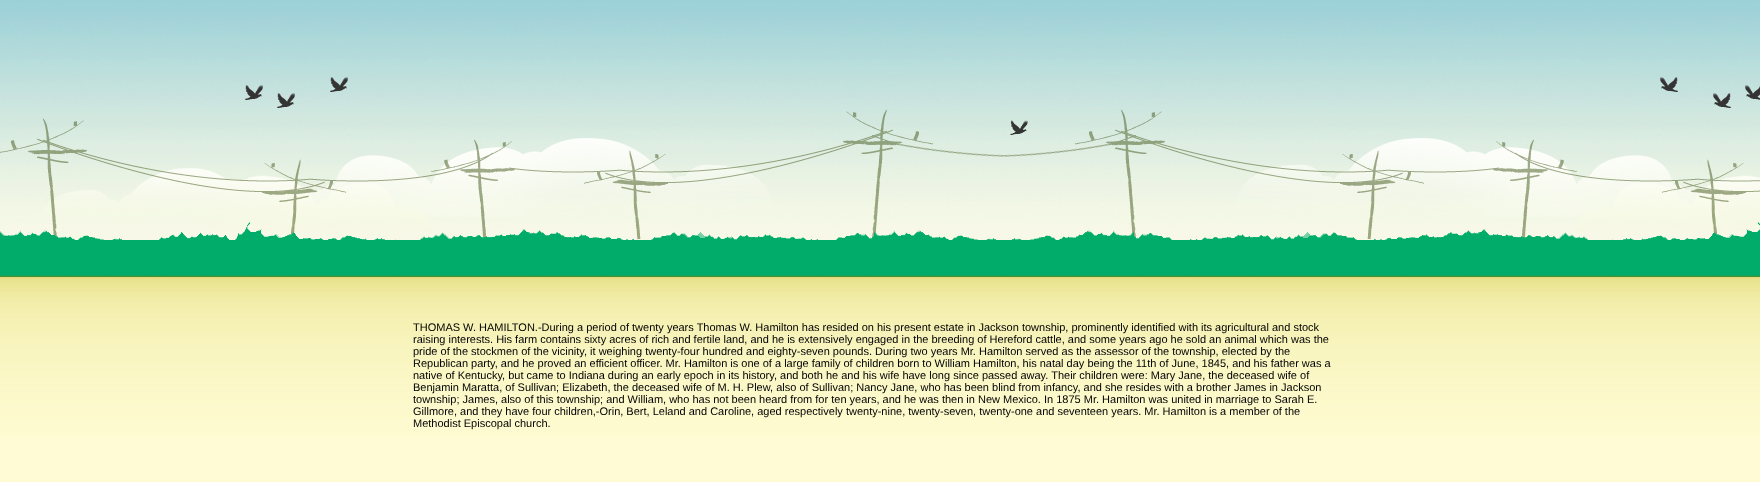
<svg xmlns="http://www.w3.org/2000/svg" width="1760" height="482">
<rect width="100%" height="100%" fill="#fff"/>
<image x="0" y="0" width="1760" height="277" href="media/1.png"/>
<rect y="436" width="1760" height="46" fill="#fffcd5"/>
<image x="0" y="277" width="1760" height="159" href="media/2.png"/>
<text x="413" y="331" style="font-family:Liberation Sans;font-size:11px;fill:#000">THOMAS W. HAMILTON.-During a period of twenty years Thomas W. Hamilton has resided on his present estate in Jackson township, prominently identified with its agricultural and stock</text>
<text x="413" y="343" style="font-family:Liberation Sans;font-size:11px;fill:#000">raising interests. His farm contains sixty acres of rich and fertile land, and he is extensively engaged in the breeding of Hereford cattle, and some years ago he sold an animal which was the</text>
<text x="413" y="355" style="font-family:Liberation Sans;font-size:11px;fill:#000">pride of the stockmen of the vicinity, it weighing twenty-four hundred and eighty-seven pounds. During two years Mr. Hamilton served as the assessor of the township, elected by the</text>
<text x="413" y="367" style="font-family:Liberation Sans;font-size:11px;fill:#000">Republican party, and he proved an efficient officer. Mr. Hamilton is one of a large family of children born to William Hamilton, his natal day being the 11th of June, 1845, and his father was a</text>
<text x="413" y="379" style="font-family:Liberation Sans;font-size:11px;fill:#000">native of Kentucky, but came to Indiana during an early epoch in its history, and both he and his wife have long since passed away. Their children were: Mary Jane, the deceased wife of</text>
<text x="413" y="391" style="font-family:Liberation Sans;font-size:11px;fill:#000">Benjamin Maratta, of Sullivan; Elizabeth, the deceased wife of M. H. Plew, also of Sullivan; Nancy Jane, who has been blind from infancy, and she resides with a brother James in Jackson</text>
<text x="413" y="403" style="font-family:Liberation Sans;font-size:11px;fill:#000">township; James, also of this township; and William, who has not been heard from for ten years, and he was then in New Mexico. In 1875 Mr. Hamilton was united in marriage to Sarah E.</text>
<text x="413" y="415" style="font-family:Liberation Sans;font-size:11px;fill:#000">Gillmore, and they have four children,-Orin, Bert, Leland and Caroline, aged respectively twenty-nine, twenty-seven, twenty-one and seventeen years. Mr. Hamilton is a member of the</text>
<text x="413" y="427" style="font-family:Liberation Sans;font-size:11px;fill:#000">Methodist Episcopal church.</text>
</svg>
